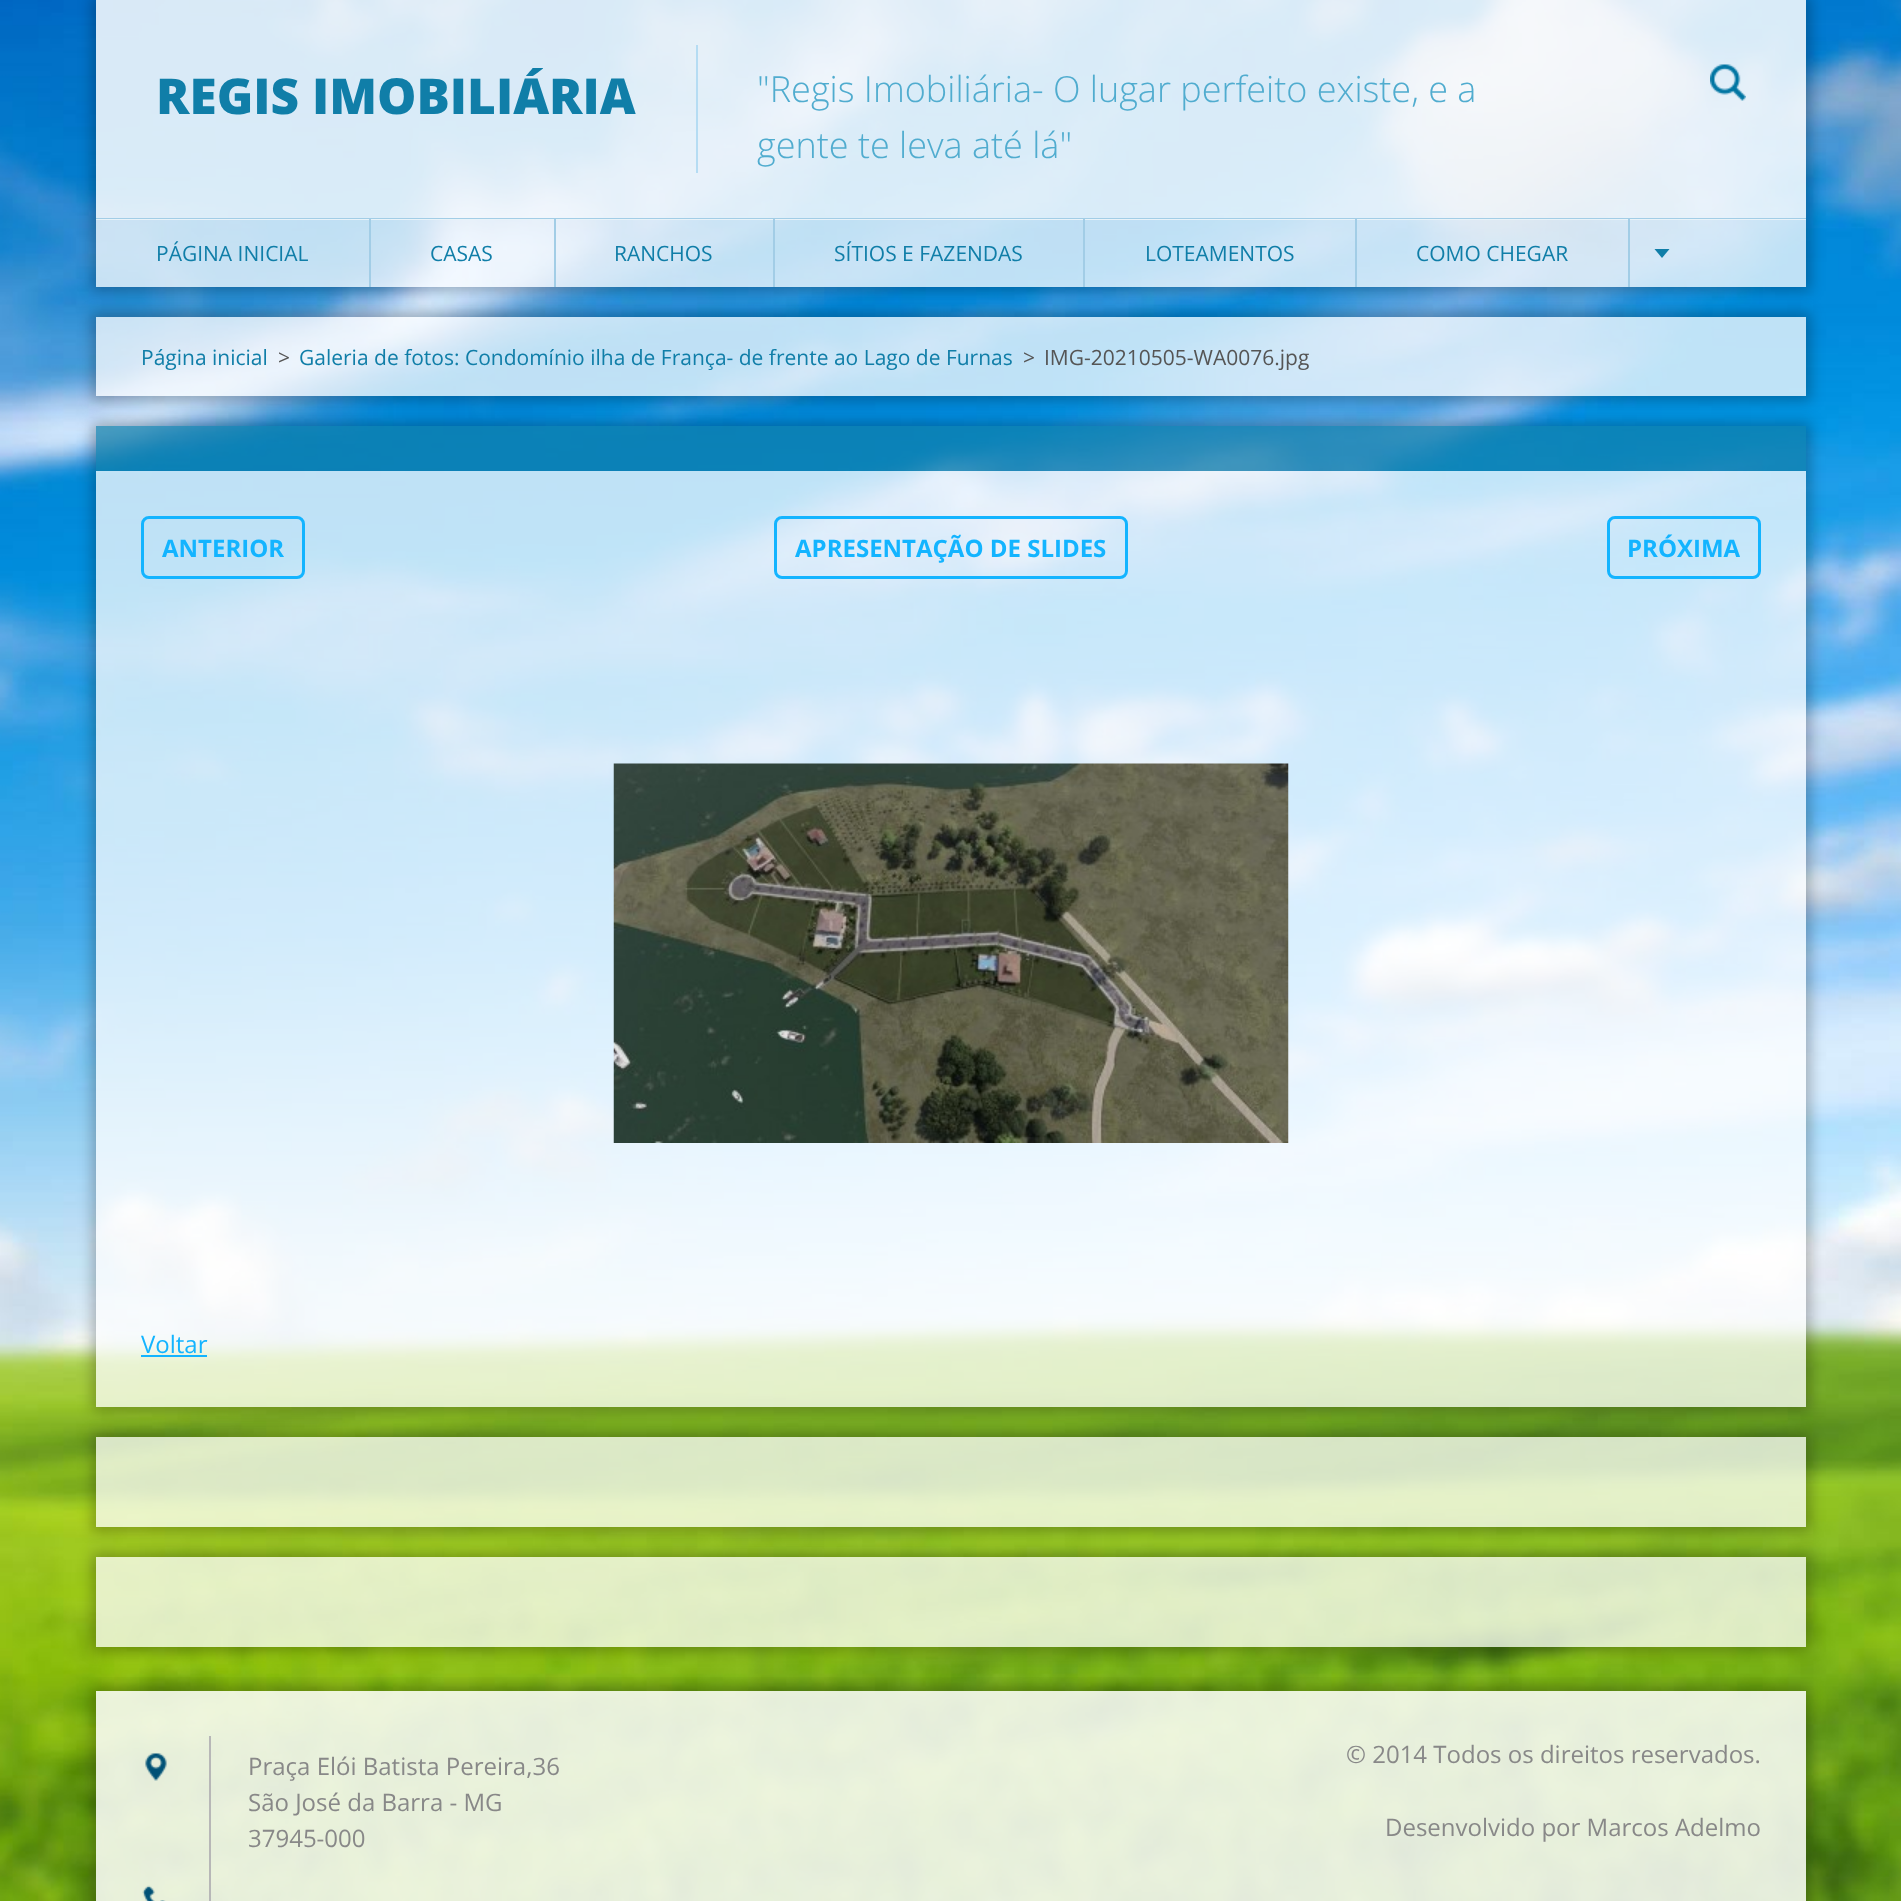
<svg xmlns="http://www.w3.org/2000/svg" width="1901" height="1901">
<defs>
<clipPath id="clip1"><path d="M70 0h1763v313h-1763zm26 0h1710v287h-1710z" clip-rule="evenodd"/></clipPath>
<clipPath id="clip2"><path d="M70 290h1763v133h-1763zm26 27h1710v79h-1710z" clip-rule="evenodd"/></clipPath>
<clipPath id="clip3"><path d="M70 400h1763v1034h-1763zm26 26h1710v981h-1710z" clip-rule="evenodd"/></clipPath>
<clipPath id="clip4"><path d="M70 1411h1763v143h-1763zm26 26h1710v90h-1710z" clip-rule="evenodd"/></clipPath>
<clipPath id="clip5"><path d="M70 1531h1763v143h-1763zm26 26h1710v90h-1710z" clip-rule="evenodd"/></clipPath>
<clipPath id="clip6"><rect x="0" y="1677" width="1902" height="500"/></clipPath>
<clipPath id="clip7"><path d="M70 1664h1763v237h-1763zm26 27h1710v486h-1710z" clip-rule="evenodd"/></clipPath>
</defs>
<rect width="100%" height="100%" fill="#fff"/>
<image x="0" y="0" width="1901" height="1901" href="media/1.png"/>
<g clip-path="url(#clip1)">
<rect x="92" y="-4" width="1719" height="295" fill="#00000040" filter="blur(7px)"/>
</g>
<rect x="96" width="1710" height="218" fill="#ffffffd9"/>
<text x="156" y="114" style="font-family:Open Sans;font-size:49.5px;font-weight:800;fill:#107ea8">REGIS IMOBILIÁRIA</text>
<rect x="696" y="45" width="2" height="128" fill="#b5dcf3"/>
<text x="757" y="102" style="font-family:Open Sans;font-size:36px;font-weight:300;fill:#50accf">"Regis Imobiliária- O lugar perfeito existe, e a</text>
<text x="757" y="158" style="font-family:Open Sans;font-size:36px;font-weight:300;fill:#50accf">gente te leva até lá"</text>
<image x="1710" y="64" width="36" height="37" href="media/2.png"/>
<rect x="96" y="218" width="1710" height="2" fill="#a2cde6"/>
<rect x="96" y="219" width="1710" height="68" fill="#ffffffbf"/>
<rect x="369" y="219" width="2" height="68" fill="#a2cde6"/>
<text x="156" y="261" style="font-family:Open Sans;font-size:21px;fill:#107ea8">PÁGINA INICIAL</text>
<rect x="554" y="219" width="2" height="68" fill="#a2cde6"/>
<text x="430" y="261" style="font-family:Open Sans;font-size:21px;fill:#107ea8">CASAS</text>
<rect x="773" y="219" width="2" height="68" fill="#a2cde6"/>
<text x="614" y="261" style="font-family:Open Sans;font-size:21px;fill:#107ea8">RANCHOS</text>
<rect x="1083" y="219" width="2" height="68" fill="#a2cde6"/>
<text x="834" y="261" style="font-family:Open Sans;font-size:21px;fill:#107ea8">SÍTIOS E FAZENDAS</text>
<rect x="1355" y="219" width="2" height="68" fill="#a2cde6"/>
<text x="1145" y="261" style="font-family:Open Sans;font-size:21px;fill:#107ea8">LOTEAMENTOS</text>
<rect x="1628" y="219" width="2" height="68" fill="#a2cde6"/>
<text x="1416" y="261" style="font-family:Open Sans;font-size:21px;fill:#107ea8">COMO CHEGAR</text>
<path d="M1654.5 249h15l-7.5 9z" fill="#107ea8"/>
<g clip-path="url(#clip2)">
<rect x="92" y="312" width="1719" height="89" fill="#00000040" filter="blur(7px)"/>
</g>
<rect x="96" y="317" width="1710" height="79" fill="#ffffffbf"/>
<text x="141" y="365" style="font-family:Open Sans;font-size:21px;fill:#107ea8">Página inicial</text>
<text x="278" y="365" style="font-family:Open Sans;font-size:21px;fill:#555">&gt;</text>
<text x="299" y="365" style="font-family:Open Sans;font-size:21px;fill:#107ea8">Galeria de fotos: Condomínio ilha de França- de frente ao Lago de Furnas</text>
<text x="1023" y="365" style="font-family:Open Sans;font-size:21px;fill:#555">&gt;</text>
<text x="1044" y="365" style="font-family:Open Sans;font-size:21px;fill:#555">IMG-20210505-WA0076.jpg</text>
<g clip-path="url(#clip3)">
<rect x="92" y="422" width="1719" height="990" fill="#00000040" filter="blur(7px)"/>
</g>
<rect x="96" y="426" width="1710" height="45" fill="#107ea8b5"/>
<rect x="96" y="471" width="1710" height="855" fill="#ffffffbf"/>
<rect x="142.5" y="517.5" width="161" height="60" rx="6.5" fill="none" stroke="#13b4ff" stroke-width="3"/>
<text x="162" y="557" style="font-family:Open Sans;font-size:24px;font-weight:bold;fill:#13b4ff">ANTERIOR</text>
<rect x="775.5" y="517.5" width="351" height="60" rx="6.5" fill="none" stroke="#13b4ff" stroke-width="3"/>
<text x="795" y="557" style="font-family:Open Sans;font-size:24px;font-weight:bold;fill:#13b4ff">APRESENTAÇÃO DE SLIDES</text>
<rect x="1608.5" y="517.5" width="151" height="60" rx="6.5" fill="none" stroke="#13b4ff" stroke-width="3"/>
<text x="1627" y="557" style="font-family:Open Sans;font-size:24px;font-weight:bold;fill:#13b4ff">PRÓXIMA</text>
<image x="613" y="763" width="676" height="380" href="media/3.png"/>
<rect x="96" y="1326" width="1710" height="81" fill="#ffffffbf"/>
<text x="141" y="1353" style="font-family:Open Sans;font-size:24px;fill:#13b4ff">Voltar</text>
<rect x="141" y="1355" width="66" height="2" fill="#13b4ff"/>
<g clip-path="url(#clip4)">
<rect x="92" y="1433" width="1719" height="99" fill="#00000040" filter="blur(7px)"/>
</g>
<rect x="96" y="1437" width="1710" height="45" fill="#ffffffbf"/>
<rect x="96" y="1482" width="1710" height="45" fill="#ffffffbf"/>
<g clip-path="url(#clip5)">
<rect x="92" y="1553" width="1719" height="99" fill="#00000040" filter="blur(7px)"/>
</g>
<rect x="96" y="1557" width="1710" height="45" fill="#ffffffbf"/>
<rect x="96" y="1602" width="1710" height="45" fill="#ffffffbf"/>
<g clip-path="url(#clip6)">
<g clip-path="url(#clip7)">
<rect x="92" y="1686" width="1719" height="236" fill="#00000040" filter="blur(7px)"/>
</g>
</g>
<rect x="96" y="1691" width="1710" height="210" fill="#ffffffd9"/>
<image x="145" y="1753" width="22" height="28" href="media/4.png"/>
<rect x="209" y="1736" width="2" height="165" fill="#b7b7b7"/>
<text x="248" y="1775" style="font-family:Open Sans;font-size:24px;fill:#888">Praça Elói Batista Pereira,36</text>
<text x="248" y="1811" style="font-family:Open Sans;font-size:24px;fill:#888">São José da Barra - MG</text>
<text x="248" y="1847" style="font-family:Open Sans;font-size:24px;fill:#888">37945-000</text>
<image x="142" y="1885" width="24" height="16" href="media/5.png"/>
<text x="1346" y="1763" style="font-family:Open Sans;font-size:24px;fill:#888">© 2014 Todos os direitos reservados.</text>
<text x="1385" y="1836" style="font-family:Open Sans;font-size:24px;fill:#888">Desenvolvido por Marcos Adelmo</text>
</svg>
